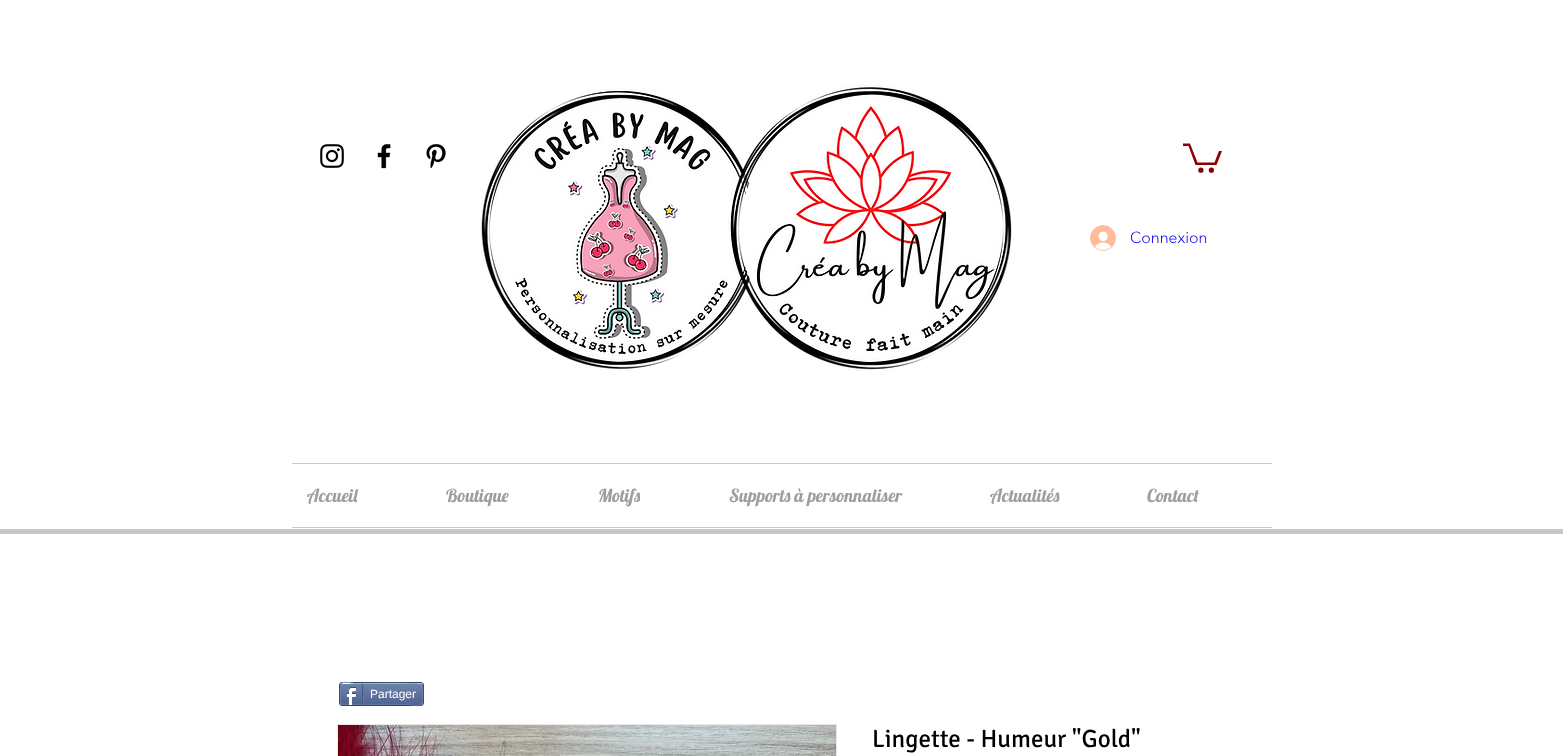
<svg xmlns="http://www.w3.org/2000/svg" width="1563" height="756">
<rect width="100%" height="100%" fill="#fff"/>
<image x="320" y="144" width="24" height="24" href="media/1.png"/>
<image x="377" y="144" width="14" height="25" href="media/2.png"/>
<image x="426" y="143" width="20" height="25" href="media/3.png"/>
<image x="481" y="85" width="531" height="286" href="media/4.png"/>
<path d="M1222 151l-5.5 14h-21l-7-19h-5.5v-2.5h7l7.5 19h17l4.5-11.5" fill="#8b0000"/>
<circle cx="1211.4" cy="170.2" r="2.6" fill="#8b0000"/>
<circle cx="1200.9" cy="170.2" r="2.6" fill="#8b0000"/>
<image x="1090" y="225" width="26" height="26" href="media/5.png"/>
<text x="1130" y="243" style="font-family:'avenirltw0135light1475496';font-size:16px;font-weight:300;fill:#170df2">Connexion</text>
<rect x="292" y="463" width="980" height="1" fill="#cacaca"/>
<rect x="292" y="527" width="980" height="1" fill="#cacaca"/>
<text x="307" y="502" style="font-family:Lobster;font-size:18px;fill:#9e9e9e">Accueil</text>
<text x="446" y="502" style="font-family:Lobster;font-size:18px;fill:#9e9e9e">Boutique</text>
<text x="598" y="502" style="font-family:Lobster;font-size:18px;fill:#9e9e9e">Motifs</text>
<text x="729" y="502" style="font-family:Lobster;font-size:18px;fill:#9e9e9e">Supports à personnaliser</text>
<text x="990" y="502" style="font-family:Lobster;font-size:18px;fill:#9e9e9e">Actualités</text>
<text x="1147" y="502" style="font-family:Lobster;font-size:18px;fill:#9e9e9e">Contact</text>
<rect y="529" width="1563" height="5" fill="#c7c7c7"/>
<rect x="339.5" y="682.5" width="84" height="23" rx="2.5" fill="none" stroke="#2d4565"/>
<image x="340" y="684" width="83" height="21" href="media/6.png"/>
<path d="M341 684c3.5-3.5 9.5-.5 14-.5c7 0 66-.5 67 .5" fill="none" stroke="#9aabc6"/>
<path d="M422 684c1 .5 1 19.5 0 20" fill="none" stroke="#6f83ad"/>
<path d="M422 704c-3.5 3.5-9.5 .5-14 .5c-7 0-66 .5-67-.5" fill="none" stroke="#6176a3"/>
<path d="M341 704c-1-.5-1-19.5 0-20" fill="none" stroke="#6f83ad"/>
<image x="346" y="687" width="10" height="18" href="media/7.png"/>
<rect x="362" y="684" width="1" height="21" fill="#425e85"/>
<text x="370" y="698" style="font-family:Liberation Sans;font-size:12px;fill:#fff">Partager</text>
<rect x="363" y="684" width="1" height="20" fill="#6176a3"/>
<rect x="337.5" y="724.5" width="499" height="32" fill="none" stroke="#e8e6e6"/>
<image x="338" y="725" width="498" height="31" href="media/8.png"/>
<text x="872" y="747" style="font-family:Signika;font-size:25px;fill:#000">Lingette - Humeur "Gold"</text>
</svg>
